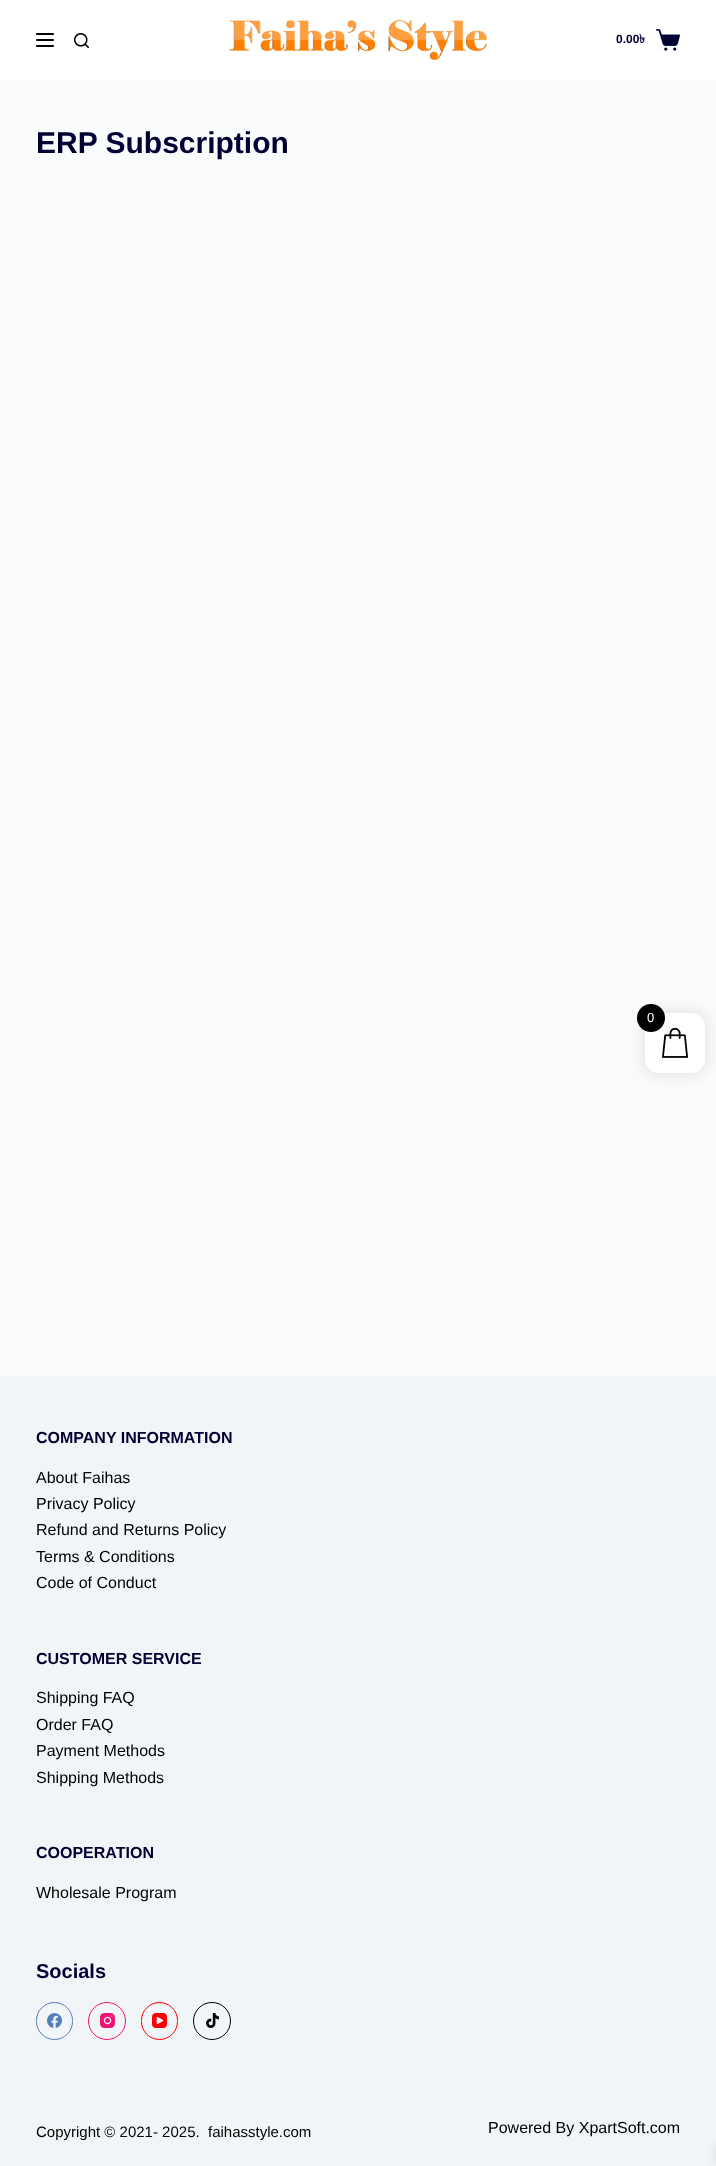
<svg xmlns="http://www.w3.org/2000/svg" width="716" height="2166">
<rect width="100%" height="100%" fill="#fafbfc"/>
<rect width="716" height="80" fill="#fff"/>
<rect x="36" y="33" width="18" height="2" rx="1" fill="#000"/>
<rect x="36" y="39" width="18" height="2" rx="1" fill="#000"/>
<rect x="36" y="45" width="18" height="2" rx="1" fill="#000"/>
<image x="74" y="33" width="15" height="15" href="media/1.png"/>
<image x="228" y="20" width="259" height="40" href="media/2.png"/>
<text x="616" y="43" style="font-family:Liberation Sans;font-size:12px;font-weight:bold;fill:#003">0.00</text>
<text x="639" y="43" style="font-family:Lohit Bengali;font-size:12px;font-weight:bold;fill:#003">৳</text>
<image x="656" y="29" width="24" height="22" href="media/3.png"/>
<text x="36" y="153" style="font-family:Liberation Sans;font-size:30px;font-weight:bold;fill:#003">ERP Subscription</text>
<rect y="1376" width="716" height="790" fill="#f2f5f7"/>
<text x="36" y="1443" style="font-family:Liberation Sans;font-size:16px;font-weight:bold;fill:#003">COMPANY INFORMATION</text>
<text x="36" y="1483" style="font-family:Liberation Sans;font-size:16px;fill:#000">About Faihas</text>
<text x="36" y="1509" style="font-family:Liberation Sans;font-size:16px;fill:#000">Privacy Policy</text>
<text x="36" y="1535" style="font-family:Liberation Sans;font-size:16px;fill:#000">Refund and Returns Policy</text>
<text x="36" y="1562" style="font-family:Liberation Sans;font-size:16px;fill:#000">Terms &amp; Conditions</text>
<text x="36" y="1588" style="font-family:Liberation Sans;font-size:16px;fill:#000">Code of Conduct</text>
<text x="36" y="1664" style="font-family:Liberation Sans;font-size:16px;font-weight:bold;fill:#003">CUSTOMER SERVICE</text>
<text x="36" y="1703" style="font-family:Liberation Sans;font-size:16px;fill:#000">Shipping FAQ</text>
<text x="36" y="1730" style="font-family:Liberation Sans;font-size:16px;fill:#000">Order FAQ</text>
<text x="36" y="1756" style="font-family:Liberation Sans;font-size:16px;fill:#000">Payment Methods</text>
<text x="36" y="1783" style="font-family:Liberation Sans;font-size:16px;fill:#000">Shipping Methods</text>
<text x="36" y="1858" style="font-family:Liberation Sans;font-size:16px;font-weight:bold;fill:#003">COOPERATION</text>
<text x="36" y="1898" style="font-family:Liberation Sans;font-size:16px;fill:#000">Wholesale Program</text>
<text x="36" y="1978" style="font-family:Liberation Sans;font-size:20px;font-weight:bold;fill:#003">Socials</text>
<rect x="36.5" y="2002.5" width="36" height="37" rx="18" fill="none" stroke="#557dbc"/>
<image x="47" y="2013" width="15" height="15" href="media/4.png"/>
<circle cx="107" cy="2021" r="18.5" fill="none" stroke="#ed1376"/>
<image x="100" y="2013" width="15" height="15" href="media/5.png"/>
<rect x="141.5" y="2002.5" width="36" height="37" rx="18" fill="none" stroke="#f00"/>
<image x="152" y="2013" width="15" height="15" href="media/6.png"/>
<circle cx="212" cy="2021" r="18.5" fill="none" stroke="#000"/>
<image x="206" y="2013" width="13" height="15" href="media/7.png"/>
<text x="36" y="2137" style="font-family:Liberation Sans;font-size:15px;fill:#000" xml:space="preserve">Copyright © 2021- 2025.  faihasstyle.com</text>
<text x="488" y="2133" style="font-family:Liberation Sans;font-size:16px;fill:#000">Powered By XpartSoft.com</text>
<rect x="643" y="1011" width="64" height="64" rx="16" fill="#0000001a" filter="blur(7.5px)"/>
<rect x="645" y="1013" width="60" height="60" rx="14" fill="#fff"/>
<image x="662" y="1027" width="26" height="31" href="media/8.png"/>
<circle cx="651" cy="1018" r="14" fill="#000"/>
<text x="647" y="1022" style="font-family:Liberation Sans;font-size:13px;fill:#fff">0</text>
<rect x="716" y="2145" width="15" height="20" fill="#0000001a" filter="blur(5px)"/>
</svg>
